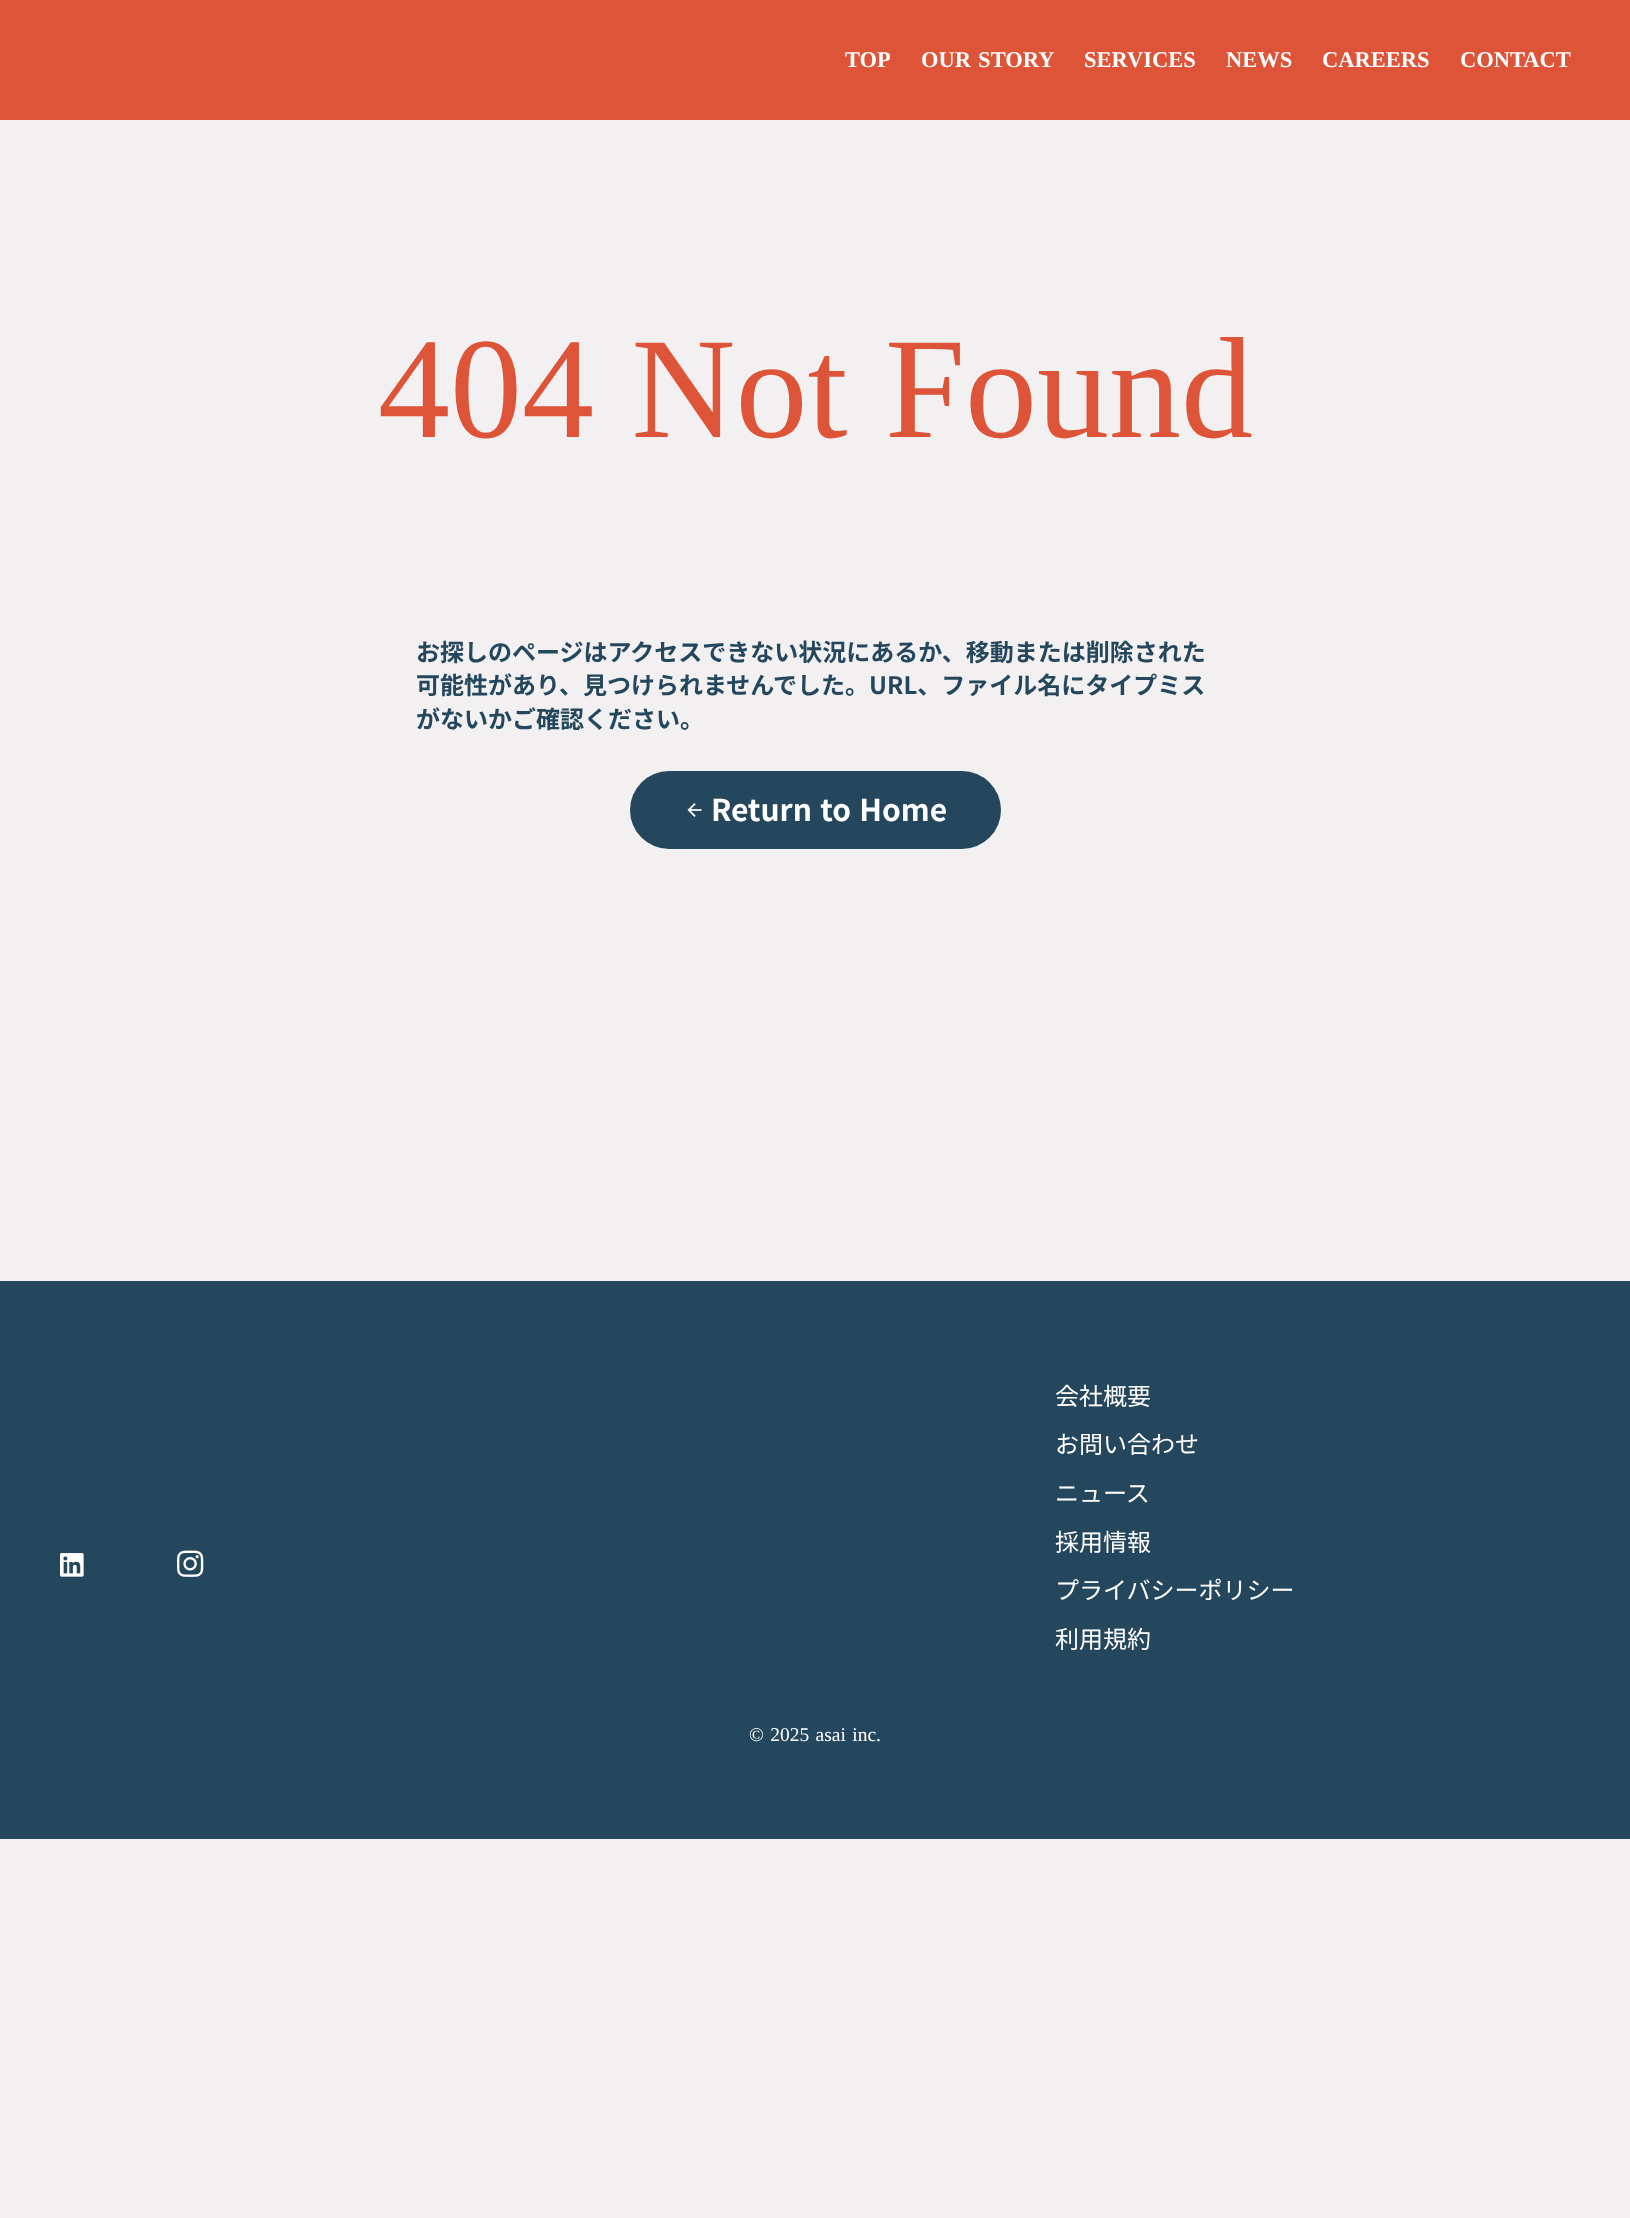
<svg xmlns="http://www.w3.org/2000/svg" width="1630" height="2218">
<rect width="100%" height="100%" fill="#f2f0f0"/>
<rect width="1630" height="120" fill="#de5438"/>
<text x="845" y="67" style="font-family:Liberation Serif;font-size:22.5px;font-weight:bold;fill:#fff">TOP</text>
<text x="921" y="67" word-spacing="1.5" style="font-family:Liberation Serif;font-size:22.5px;font-weight:bold;fill:#fff">OUR STORY</text>
<text x="1084" y="67" style="font-family:Liberation Serif;font-size:22.5px;font-weight:bold;fill:#fff">SERVICES</text>
<text x="1226" y="67" style="font-family:Liberation Serif;font-size:22.5px;font-weight:bold;fill:#fff">NEWS</text>
<text x="1322" y="67" style="font-family:Liberation Serif;font-size:22.5px;font-weight:bold;fill:#fff">CAREERS</text>
<text x="1460" y="67" style="font-family:Liberation Serif;font-size:22.5px;font-weight:bold;fill:#fff">CONTACT</text>
<text x="378" y="437" word-spacing="1.5" style="font-family:Liberation Serif;font-size:144px;fill:#de5438">404 Not Found</text>
<text x="416" y="661" style="font-family:Noto Sans JP;font-size:24px;font-weight:bold;fill:#25475d">お探しのページはアクセスできない状況にあるか、移動または削除された</text>
<text x="416" y="694" style="font-family:Noto Sans JP;font-size:24px;font-weight:bold;fill:#25475d">可能性があり、見つけられませんでした。URL、ファイル名にタイプミス</text>
<text x="416" y="728" style="font-family:Noto Sans JP;font-size:24px;font-weight:bold;fill:#25475d">がないかご確認ください。</text>
<rect x="630" y="771" width="371" height="78" rx="39" fill="#25475d"/>
<image x="687" y="803" width="15" height="14" href="media/1.png"/>
<text x="711" y="821" word-spacing="1.5" style="font-family:Noto Sans JP;font-size:30px;font-weight:bold;fill:#fff">Return to Home</text>
<rect y="1281" width="1630" height="558" fill="#25475d"/>
<image x="60" y="1553" width="24" height="24" href="media/2.png"/>
<image x="177" y="1550" width="27" height="27" href="media/3.png"/>
<text x="1055" y="1405" style="font-family:Noto Sans JP;font-size:24px;fill:#fff">会社概要</text>
<text x="1055" y="1453" style="font-family:Noto Sans JP;font-size:24px;fill:#fff">お問い合わせ</text>
<text x="1055" y="1502" style="font-family:Noto Sans JP;font-size:24px;fill:#fff">ニュース</text>
<text x="1055" y="1551" style="font-family:Noto Sans JP;font-size:24px;fill:#fff">採用情報</text>
<text x="1055" y="1599" style="font-family:Noto Sans JP;font-size:24px;fill:#fff">プライバシーポリシー</text>
<text x="1055" y="1648" style="font-family:Noto Sans JP;font-size:24px;fill:#fff">利用規約</text>
<text x="749" y="1741" word-spacing="1.5" style="font-family:Liberation Serif;font-size:19.5px;fill:#fff">©︎ 2025 asai inc.</text>
</svg>
